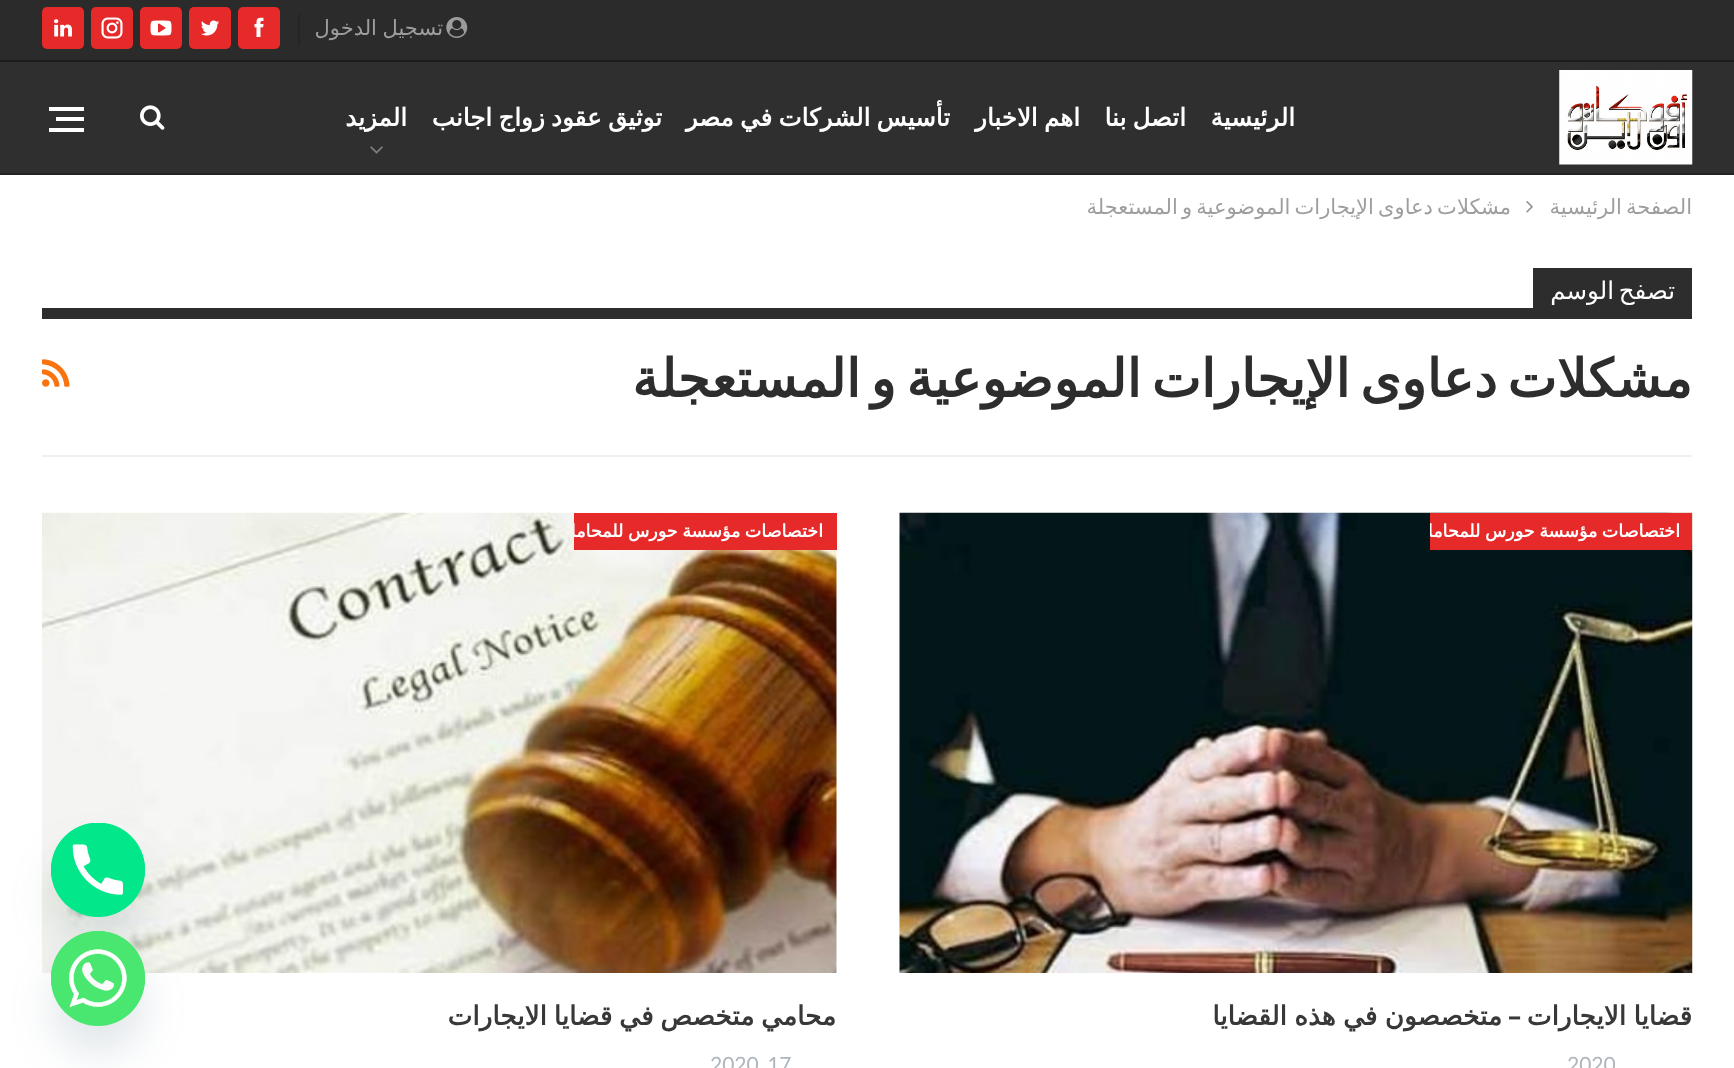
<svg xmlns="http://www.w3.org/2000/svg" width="1734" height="1068">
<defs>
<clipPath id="clip1"><rect x="1430" y="513" width="262" height="37"/></clipPath>
<clipPath id="clip2"><rect x="574" y="513" width="263" height="37"/></clipPath>
</defs>
<rect width="100%" height="100%" fill="#fff"/>
<rect y="62" width="1734" height="111" fill="#2f2f2f"/>
<rect y="173" width="1734" height="2" fill="#232323"/>
<rect width="1734" height="60" fill="#2b2b2b"/>
<rect y="60" width="1734" height="2" fill="#1d1d1d"/>
<image x="446" y="17" width="22" height="21" href="media/1.png"/>
<text x="443" y="35" word-spacing="-1" style="font-family:DejaVu Sans;font-size:21px;direction:rtl;fill:#9e9e9e">تسجيل الدخول</text>
<rect x="298" y="14" width="2" height="32" fill="#252525"/>
<rect x="238" y="7" width="42" height="42" rx="5" fill="#e62929"/>
<image x="254" y="17" width="10" height="20" href="media/2.png"/>
<rect x="189" y="7" width="42" height="42" rx="5" fill="#e62929"/>
<image x="201" y="20" width="19" height="16" href="media/3.png"/>
<rect x="140" y="7" width="42" height="42" rx="5" fill="#e62929"/>
<image x="150" y="20" width="22" height="16" href="media/4.png"/>
<rect x="91" y="7" width="42" height="42" rx="5" fill="#e62929"/>
<image x="101" y="17" width="22" height="22" href="media/5.png"/>
<rect x="42" y="7" width="42" height="42" rx="5" fill="#e62929"/>
<image x="54" y="19" width="18" height="18" href="media/6.png"/>
<image x="1559" y="70" width="134" height="95" href="media/7.png"/>
<text x="1295" y="126" style="font-family:DejaVu Sans;font-size:24.5px;font-weight:bold;direction:rtl;fill:#fff">الرئيسية</text>
<text x="1186" y="126" word-spacing="-1.5" style="font-family:DejaVu Sans;font-size:24.5px;font-weight:bold;direction:rtl;fill:#fff">اتصل بنا</text>
<text x="1080" y="126" word-spacing="-1.5" style="font-family:DejaVu Sans;font-size:24.5px;font-weight:bold;direction:rtl;fill:#fff">اهم الاخبار</text>
<text x="950" y="126" word-spacing="-1.5" style="font-family:DejaVu Sans;font-size:24.5px;font-weight:bold;direction:rtl;fill:#fff">تأسيس الشركات في مصر</text>
<text x="662" y="126" word-spacing="-1.5" style="font-family:DejaVu Sans;font-size:24.5px;font-weight:bold;direction:rtl;fill:#fff">توثيق عقود زواج اجانب</text>
<text x="407" y="126" style="font-family:DejaVu Sans;font-size:24.5px;font-weight:bold;direction:rtl;fill:#fff">المزيد</text>
<image x="370" y="146" width="13" height="8" href="media/8.png"/>
<image x="140" y="105" width="25" height="25" href="media/9.png"/>
<rect x="56" y="117" width="28" height="4" fill="#fff"/>
<rect x="49" y="107" width="35" height="4" fill="#fff"/>
<rect x="49" y="128" width="35" height="4" fill="#fff"/>
<text x="1692" y="214" word-spacing="-2.5" style="font-family:DejaVu Sans;font-size:21px;direction:rtl;fill:#9e9e9e">الصفحة الرئيسية</text>
<image x="1526" y="201" width="7" height="12" href="media/10.png"/>
<text x="1511" y="214" word-spacing="-2.5" style="font-family:DejaVu Sans;font-size:21px;direction:rtl;fill:#9e9e9e">مشكلات دعاوى الإيجارات الموضوعية و المستعجلة</text>
<rect x="42" y="455" width="1650" height="2" fill="#f0f0f0"/>
<rect x="1533" y="268" width="159" height="40" fill="#2d2d2d"/>
<text x="1675" y="299" word-spacing="-3" style="font-family:DejaVu Sans;font-size:24.5px;direction:rtl;fill:#fff">تصفح الوسم</text>
<rect x="42" y="308" width="1650" height="11" fill="#2d2d2d"/>
<text x="1692" y="397" word-spacing="-6.5" style="font-family:DejaVu Sans;font-size:52.5px;font-weight:bold;direction:rtl;fill:#2d2d2d">مشكلات دعاوى الإيجارات الموضوعية و المستعجلة</text>
<image x="42" y="359" width="28" height="28" href="media/11.png"/>
<image x="899" y="512" width="794" height="461" href="media/12.png"/>
<rect x="1430" y="513" width="262" height="37" fill="#e62929"/>
<g clip-path="url(#clip1)">
<text x="1680" y="537" word-spacing="-1" style="font-family:DejaVu Sans;font-size:17.5px;font-weight:bold;direction:rtl;fill:#fff">اختصاصات مؤسسة حورس للمحاماه</text>
</g>
<text x="1692" y="1025" word-spacing="-1" style="font-family:DejaVu Sans;font-size:26.25px;font-weight:bold;direction:rtl;fill:#383838">قضايا الايجارات</text>
<text x="1521" y="1025" style="font-family:Noto Sans;font-size:26.25px;font-weight:bold;direction:rtl;fill:#383838">–</text>
<text x="1502" y="1025" word-spacing="-1" style="font-family:DejaVu Sans;font-size:26.25px;font-weight:bold;direction:rtl;fill:#383838">متخصصون في هذه القضايا</text>
<text x="1567" y="1072" style="font-family:Lato;font-size:21px;fill:#adb5bd">2020</text>
<image x="42" y="512" width="795" height="461" href="media/13.png"/>
<rect x="574" y="513" width="263" height="37" fill="#e62929"/>
<g clip-path="url(#clip2)">
<text x="823" y="537" word-spacing="-1" style="font-family:DejaVu Sans;font-size:17.5px;font-weight:bold;direction:rtl;fill:#fff">اختصاصات مؤسسة حورس للمحاماه</text>
</g>
<text x="836" y="1025" word-spacing="-1.5" style="font-family:DejaVu Sans;font-size:26.25px;font-weight:bold;direction:rtl;fill:#383838">محامي متخصص في قضايا الايجارات</text>
<text x="767" y="1072" style="font-family:Lato;font-size:21px;fill:#adb5bd">17</text>
<text x="710" y="1072" style="font-family:Lato;font-size:21px;fill:#adb5bd">2020</text>
<rect x="51" y="851" width="94" height="94" rx="47" fill="#49687e29" filter="blur(21px)"/>
<circle cx="98" cy="870" r="47" fill="#03e78b"/>
<image x="51" y="823" width="94" height="94" href="media/14.png"/>
<rect x="51" y="959" width="94" height="95" rx="47" fill="#49687e29" filter="blur(21px)"/>
<rect x="51" y="931" width="94" height="95" rx="47" fill="#49e670"/>
<image x="51" y="931" width="94" height="77" href="media/15.png"/>
</svg>
